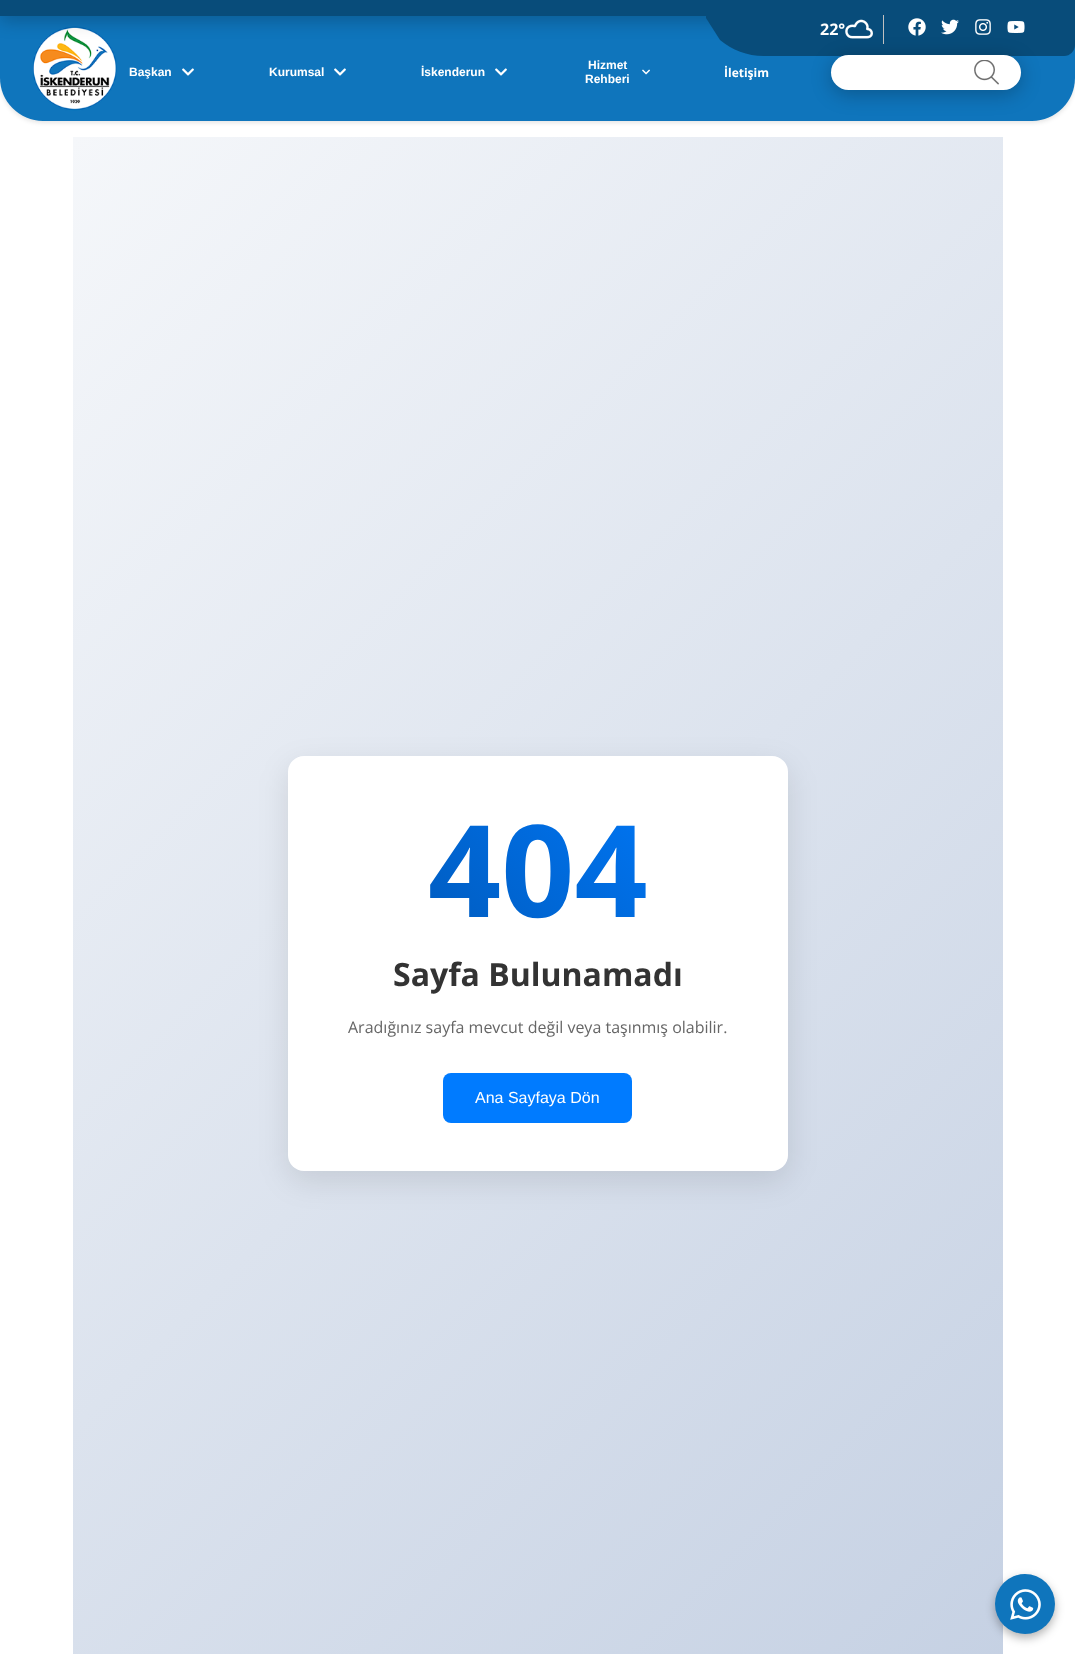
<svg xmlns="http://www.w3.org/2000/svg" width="1075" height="1654">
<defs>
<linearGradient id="g1" gradientUnits="userSpaceOnUse" x1="405" y1="1001" x2="671" y2="735"><stop offset="0" stop-color="#0056b3"/><stop offset="1" stop-color="#007bff"/></linearGradient>
<linearGradient id="g2" gradientUnits="userSpaceOnUse" x1="-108" y1="318" x2="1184" y2="1610"><stop offset="0" stop-color="#f5f7fa"/><stop offset="1" stop-color="#c3cfe2"/></linearGradient>
</defs>
<rect width="100%" height="100%" fill="#fff"/>
<rect y="18" width="1075" height="105" rx="43" fill="#0000001a" filter="blur(2px)"/>
<path d="M0 16h1075v62c0 23.5-19.5 43-43 43h-989c-23.5 0-43-19.5-43-43z" fill="#0f75bc"/>
<image x="33" y="26" width="84" height="85" href="media/6.png"/>
<rect y="4" width="1075" height="16" fill="#00000040" filter="blur(9px)"/>
<rect width="706" height="16" fill="#084c7a"/>
<path d="M1075-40l-369 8v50l14 22c12 10 27 16 44 16h300c6 0 11-5 11-11z" fill="#084c7a"/>
<rect x="831" y="59" width="190" height="35" rx="17.5" fill="#00000040" filter="blur(10px)"/>
<text x="820" y="35" style="font-family:Open Sans;font-size:16px;font-weight:bold;fill:#fff">22°</text>
<image x="845" y="19" width="28" height="20" href="media/1.png"/>
<rect x="883" y="15" width="1" height="29" fill="#c0c0c0"/>
<image x="908" y="18" width="18" height="18" href="media/2.png"/>
<image x="941" y="19" width="18" height="16" href="media/3.png"/>
<image x="975" y="19" width="16" height="16" href="media/4.png"/>
<image x="1007" y="21" width="18" height="12" href="media/5.png"/>
<text x="129" y="76" style="font-family:Liberation Sans;font-size:12px;font-weight:bold;fill:#fff">Başkan</text>
<image x="182" y="68" width="12" height="8" href="media/7.png"/>
<text x="269" y="76" style="font-family:Liberation Sans;font-size:12px;font-weight:bold;fill:#fff">Kurumsal</text>
<image x="334" y="68" width="12" height="8" href="media/7.png"/>
<text x="421" y="76" style="font-family:Liberation Sans;font-size:12px;font-weight:bold;fill:#fff">İskenderun</text>
<image x="495" y="68" width="12" height="8" href="media/7.png"/>
<text x="588" y="69" style="font-family:Liberation Sans;font-size:12px;font-weight:bold;fill:#fff">Hizmet</text>
<image x="642" y="69" width="8" height="6" href="media/8.png"/>
<text x="585" y="83" style="font-family:Liberation Sans;font-size:12px;font-weight:bold;fill:#fff">Rehberi</text>
<text x="724" y="77" style="font-family:Open Sans;font-size:12px;font-weight:bold;fill:#fff">İletişim</text>
<rect x="831" y="55" width="190" height="35" rx="17.5" fill="#fff"/>
<image x="974" y="60" width="25" height="25" href="media/9.png"/>
<rect x="73" y="137" width="930" height="1517" fill="url(#g2)"/>
<rect x="288" y="766" width="500" height="415" rx="16" fill="#0000001a" filter="blur(15px)"/>
<rect x="288" y="756" width="500" height="415" rx="16" fill="#fff"/>
<text x="428" y="917" style="font-family:Open Sans;font-size:128px;font-weight:bold;fill:url(#g1)">404</text>
<text x="393" y="986" style="font-family:Open Sans;font-size:32px;font-weight:bold;fill:#333">Sayfa Bulunamadı</text>
<text x="348" y="1033" style="font-family:Open Sans;font-size:16px;fill:#666">Aradığınız sayfa mevcut değil veya taşınmış olabilir.</text>
<rect x="443" y="1073" width="189" height="50" rx="8" fill="#007bff"/>
<text x="475" y="1103" style="font-family:Liberation Sans;font-size:16px;fill:#fff">Ana Sayfaya Dön</text>
<rect x="995" y="1578" width="60" height="60" rx="30" fill="#0000004d" filter="blur(5px)"/>
<circle cx="1025" cy="1604" r="30" fill="#0f75bc"/>
<image x="1010" y="1589" width="31" height="31" href="media/10.png"/>
</svg>
